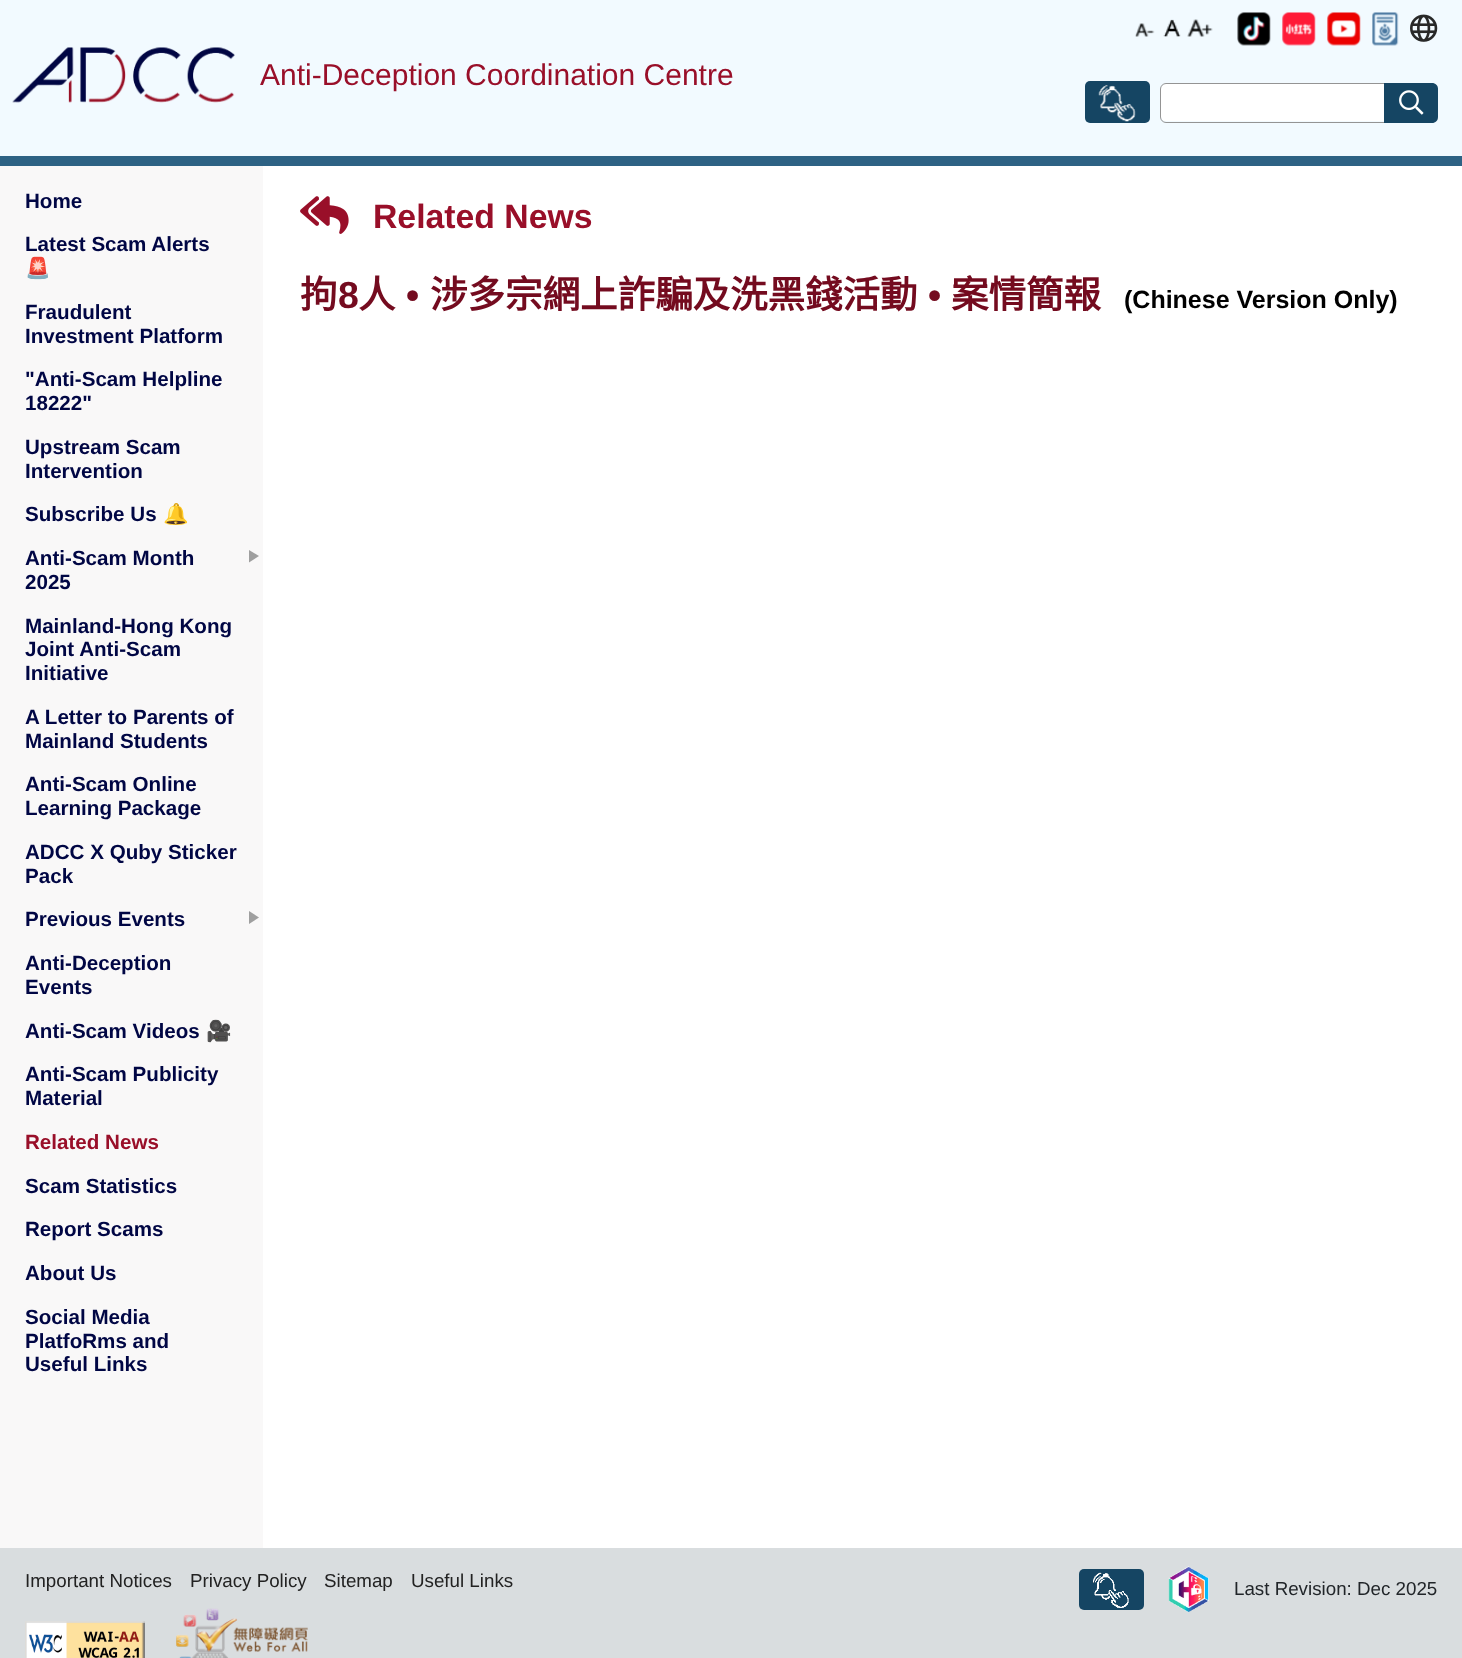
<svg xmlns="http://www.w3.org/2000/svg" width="1462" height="1658">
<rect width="100%" height="100%" fill="#f9f8f8"/>
<rect width="1462" height="156" fill="#f2faff"/>
<image x="1135" y="23" width="20" height="14" href="media/1.png"/>
<image x="1163" y="19" width="18" height="18" href="media/2.png"/>
<image x="1187" y="19" width="26" height="18" href="media/3.png"/>
<image x="1237" y="12" width="34" height="34" href="media/4.png"/>
<image x="1282" y="12" width="34" height="34" href="media/5.png"/>
<image x="1327" y="12" width="34" height="34" href="media/6.png"/>
<image x="1372" y="12" width="27" height="34" href="media/7.png"/>
<image x="1410" y="14" width="28" height="28" href="media/8.png"/>
<rect y="156" width="1462" height="10" fill="#2d6284"/>
<image x="12" y="47" width="223" height="56" href="media/9.png"/>
<text x="260" y="85" style="font-family:Liberation Sans;font-size:30px;fill:#990f29">Anti-Deception Coordination Centre</text>
<rect x="1085" y="81" width="65" height="42" rx="5" fill="#154563"/>
<image x="1098" y="85" width="38" height="37" href="media/10.png"/>
<path d="M1166 84h218v37h-218c-3 0-5-2-5-5v-27c0-3 2-5 5-5z" fill="#fff"/>
<path d="M1166 83.5h218.5v39h-218.5c-3 0-5.5-2.5-5.5-5.5v-28c0-3 2.5-5.5 5.5-5.5z" fill="none" stroke="#949494"/>
<path d="M1384 83h48c3.5 0 6 2.5 6 6v28c0 3.5-2.5 6-6 6h-48z" fill="#154563"/>
<image x="1399" y="90" width="25" height="25" href="media/11.png"/>
<text x="25" y="208" style="font-family:Liberation Sans;font-size:20.6px;font-weight:bold;fill:#000644">Home</text>
<text x="25" y="251" style="font-family:Liberation Sans;font-size:20.6px;font-weight:bold;fill:#000644">Latest Scam Alerts</text>
<text x="25" y="275" style="font-family:Noto Color Emoji;font-size:20.6px;font-weight:bold;fill:#000644">🚨</text>
<text x="25" y="319" style="font-family:Liberation Sans;font-size:20.6px;font-weight:bold;fill:#000644">Fraudulent</text>
<text x="25" y="343" style="font-family:Liberation Sans;font-size:20.6px;font-weight:bold;fill:#000644">Investment Platform</text>
<text x="25" y="386" style="font-family:Liberation Sans;font-size:20.6px;font-weight:bold;fill:#000644">"Anti-Scam Helpline</text>
<text x="25" y="410" style="font-family:Liberation Sans;font-size:20.6px;font-weight:bold;fill:#000644">18222"</text>
<text x="25" y="454" style="font-family:Liberation Sans;font-size:20.6px;font-weight:bold;fill:#000644">Upstream Scam</text>
<text x="25" y="478" style="font-family:Liberation Sans;font-size:20.6px;font-weight:bold;fill:#000644">Intervention</text>
<text x="25" y="521" style="font-family:Liberation Sans;font-size:20.6px;font-weight:bold;fill:#000644">Subscribe Us</text>
<text x="163" y="521" style="font-family:Noto Color Emoji;font-size:20.6px;font-weight:bold;fill:#000644">🔔</text>
<text x="25" y="565" style="font-family:Liberation Sans;font-size:20.6px;font-weight:bold;fill:#000644">Anti-Scam Month</text>
<text x="25" y="589" style="font-family:Liberation Sans;font-size:20.6px;font-weight:bold;fill:#000644">2025</text>
<path d="M249 562.5v-12.5l10 6z" fill="#9f9f9f"/>
<text x="25" y="633" style="font-family:Liberation Sans;font-size:20.6px;font-weight:bold;fill:#000644">Mainland-Hong Kong</text>
<text x="25" y="656" style="font-family:Liberation Sans;font-size:20.6px;font-weight:bold;fill:#000644">Joint Anti-Scam</text>
<text x="25" y="680" style="font-family:Liberation Sans;font-size:20.6px;font-weight:bold;fill:#000644">Initiative</text>
<text x="25" y="724" style="font-family:Liberation Sans;font-size:20.6px;font-weight:bold;fill:#000644">A Letter to Parents of</text>
<text x="25" y="748" style="font-family:Liberation Sans;font-size:20.6px;font-weight:bold;fill:#000644">Mainland Students</text>
<text x="25" y="791" style="font-family:Liberation Sans;font-size:20.6px;font-weight:bold;fill:#000644">Anti-Scam Online</text>
<text x="25" y="815" style="font-family:Liberation Sans;font-size:20.6px;font-weight:bold;fill:#000644">Learning Package</text>
<text x="25" y="859" style="font-family:Liberation Sans;font-size:20.6px;font-weight:bold;fill:#000644">ADCC X Quby Sticker</text>
<text x="25" y="883" style="font-family:Liberation Sans;font-size:20.6px;font-weight:bold;fill:#000644">Pack</text>
<text x="25" y="926" style="font-family:Liberation Sans;font-size:20.6px;font-weight:bold;fill:#000644">Previous Events</text>
<path d="M249 924v-13l10 6.5z" fill="#9f9f9f"/>
<text x="25" y="970" style="font-family:Liberation Sans;font-size:20.6px;font-weight:bold;fill:#000644">Anti-Deception</text>
<text x="25" y="994" style="font-family:Liberation Sans;font-size:20.6px;font-weight:bold;fill:#000644">Events</text>
<text x="25" y="1038" style="font-family:Liberation Sans;font-size:20.6px;font-weight:bold;fill:#000644">Anti-Scam Videos</text>
<text x="206" y="1038" style="font-family:Noto Color Emoji;font-size:20.6px;font-weight:bold;fill:#000644">🎥</text>
<text x="25" y="1081" style="font-family:Liberation Sans;font-size:20.6px;font-weight:bold;fill:#000644">Anti-Scam Publicity</text>
<text x="25" y="1105" style="font-family:Liberation Sans;font-size:20.6px;font-weight:bold;fill:#000644">Material</text>
<text x="25" y="1149" style="font-family:Liberation Sans;font-size:20.6px;font-weight:bold;fill:#990f29">Related News</text>
<text x="25" y="1193" style="font-family:Liberation Sans;font-size:20.6px;font-weight:bold;fill:#000644">Scam Statistics</text>
<text x="25" y="1236" style="font-family:Liberation Sans;font-size:20.6px;font-weight:bold;fill:#000644">Report Scams</text>
<text x="25" y="1280" style="font-family:Liberation Sans;font-size:20.6px;font-weight:bold;fill:#000644">About Us</text>
<text x="25" y="1324" style="font-family:Liberation Sans;font-size:20.6px;font-weight:bold;fill:#000644">Social Media</text>
<text x="25" y="1348" style="font-family:Liberation Sans;font-size:20.6px;font-weight:bold;fill:#000644">PlatfoRms and</text>
<text x="25" y="1371" style="font-family:Liberation Sans;font-size:20.6px;font-weight:bold;fill:#000644">Useful Links</text>
<rect x="263" y="166" width="1199" height="1382" fill="#fff"/>
<image x="300" y="196" width="49" height="38" href="media/12.png"/>
<text x="373" y="228" style="font-family:Liberation Sans;font-size:33.75px;font-weight:bold;fill:#990f29">Related News</text>
<text x="300" y="308" style="font-family:Noto Sans CJK SC;font-size:37.5px;font-weight:bold;fill:#740b1f">拘</text>
<text x="338" y="308" style="font-family:Liberation Sans;font-size:37.5px;font-weight:bold;fill:#740b1f">8</text>
<text x="358" y="308" style="font-family:Noto Sans CJK SC;font-size:37.5px;font-weight:bold;fill:#740b1f">人</text>
<text x="406" y="308" style="font-family:Liberation Sans;font-size:37.5px;font-weight:bold;fill:#740b1f">•</text>
<text x="430" y="308" style="font-family:Noto Sans CJK SC;font-size:37.5px;font-weight:bold;fill:#740b1f">涉多宗網上詐騙及洗黑錢活動</text>
<text x="928" y="308" style="font-family:Liberation Sans;font-size:37.5px;font-weight:bold;fill:#740b1f">•</text>
<text x="951" y="308" style="font-family:Noto Sans CJK SC;font-size:37.5px;font-weight:bold;fill:#740b1f">案情簡報</text>
<text x="1124" y="308" style="font-family:Liberation Sans;font-size:25px;font-weight:bold;fill:#000">(Chinese Version Only)</text>
<rect y="1548" width="1462" height="110" fill="#d9dddf"/>
<text x="25" y="1587" style="font-family:Liberation Sans;font-size:18.75px;fill:#222">Important Notices</text>
<text x="190" y="1587" style="font-family:Liberation Sans;font-size:18.75px;fill:#222">Privacy Policy</text>
<text x="324" y="1587" style="font-family:Liberation Sans;font-size:18.75px;fill:#222">Sitemap</text>
<text x="411" y="1587" style="font-family:Liberation Sans;font-size:18.75px;fill:#222">Useful Links</text>
<rect x="1079" y="1569" width="65" height="41" rx="5" fill="#154563"/>
<image x="1093" y="1572" width="36" height="36" href="media/13.png"/>
<image x="1168" y="1566" width="41" height="47" href="media/14.png"/>
<text x="1234" y="1595" style="font-family:Liberation Sans;font-size:18.75px;fill:#212529">Last Revision: Dec 2025</text>
<image x="25" y="1621" width="120" height="37" href="media/15.png"/>
<image x="176" y="1608" width="132" height="50" href="media/16.png"/>
</svg>
